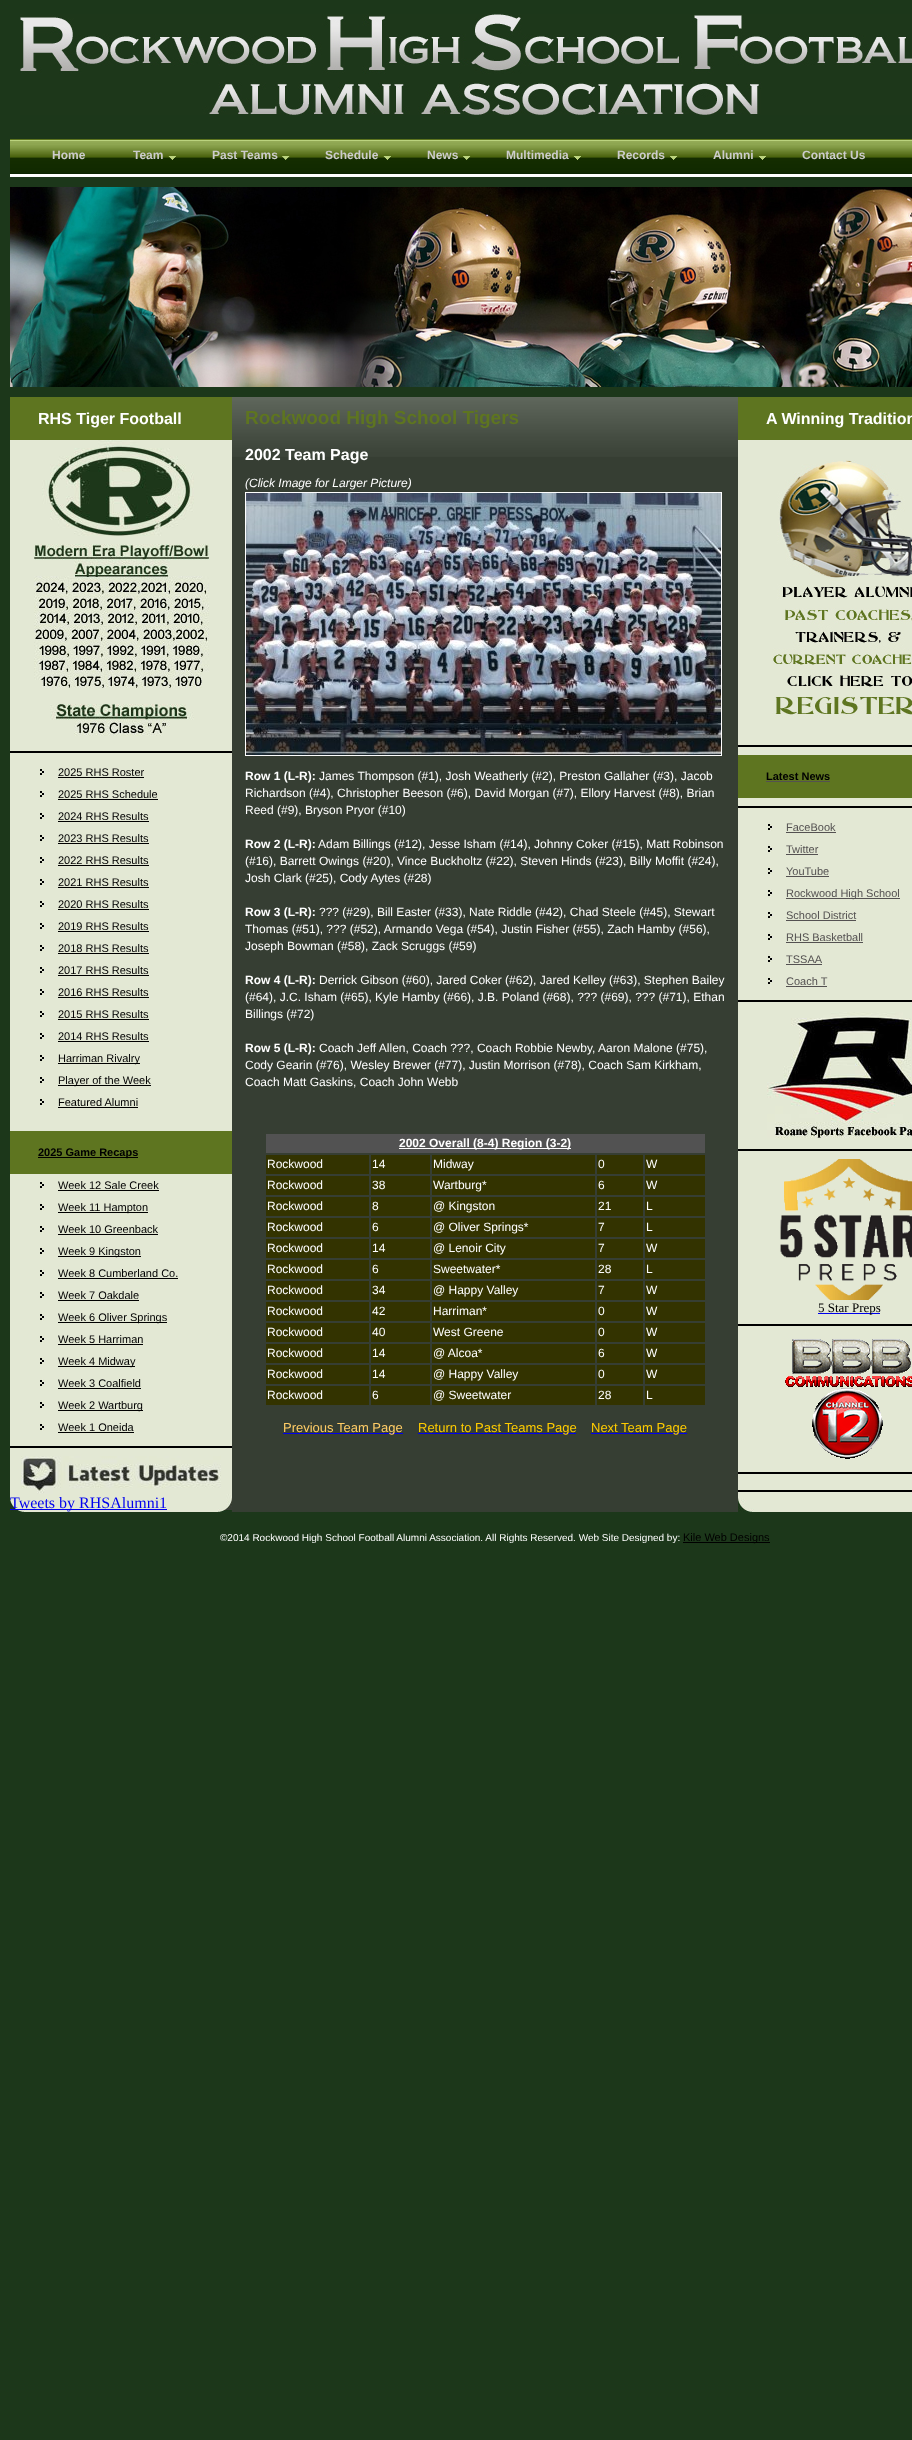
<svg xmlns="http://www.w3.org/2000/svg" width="912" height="2440">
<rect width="100%" height="100%" fill="#1c371a"/>
<image x="20" y="14" width="892" height="101" href="media/1.png"/>
<rect x="10" y="174" width="902" height="3" fill="#fff"/>
<image x="10" y="139" width="902" height="35" href="media/2.png"/>
<text x="52" y="159" style="font-family:Liberation Sans;font-size:12px;font-weight:bold;fill:#ccc">Home</text>
<image x="168" y="156" width="8" height="4" href="media/3.png"/>
<text x="133" y="159" style="font-family:Liberation Sans;font-size:12px;font-weight:bold;fill:#ccc">Team</text>
<image x="282" y="156" width="8" height="4" href="media/4.png"/>
<text x="212" y="159" style="font-family:Liberation Sans;font-size:12px;font-weight:bold;fill:#ccc">Past Teams</text>
<image x="383" y="156" width="8" height="4" href="media/5.png"/>
<text x="325" y="159" style="font-family:Liberation Sans;font-size:12px;font-weight:bold;fill:#ccc">Schedule</text>
<image x="463" y="156" width="8" height="4" href="media/6.png"/>
<text x="427" y="159" style="font-family:Liberation Sans;font-size:12px;font-weight:bold;fill:#ccc">News</text>
<image x="573" y="156" width="8" height="4" href="media/7.png"/>
<text x="506" y="159" style="font-family:Liberation Sans;font-size:12px;font-weight:bold;fill:#ccc">Multimedia</text>
<image x="670" y="156" width="8" height="4" href="media/8.png"/>
<text x="617" y="159" style="font-family:Liberation Sans;font-size:12px;font-weight:bold;fill:#ccc">Records</text>
<image x="758" y="156" width="8" height="4" href="media/9.png"/>
<text x="713" y="159" style="font-family:Liberation Sans;font-size:12px;font-weight:bold;fill:#ccc">Alumni</text>
<text x="802" y="159" style="font-family:Liberation Sans;font-size:12px;font-weight:bold;fill:#ccc">Contact Us</text>
<image x="10" y="187" width="902" height="200" href="media/10.png"/>
<rect x="10" y="440" width="222" height="1054" fill="#e3e8d4"/>
<image x="10" y="1494" width="222" height="18" href="media/11.png"/>
<rect x="10" y="397" width="222" height="43" fill="#5e7520"/>
<text x="38" y="424" style="font-family:Liberation Sans;font-size:16px;font-weight:bold;fill:#fff">RHS Tiger Football</text>
<image x="34" y="440" width="175" height="296" href="media/12.png"/>
<rect x="10" y="751" width="222" height="2" fill="#000"/>
<image x="40" y="768" width="5" height="8" href="media/13.png"/>
<text x="58" y="776" style="font-family:Liberation Sans;font-size:11px;fill:#000">2025 RHS Roster</text>
<rect x="58" y="777" width="86" height="1" fill="#000"/>
<image x="40" y="790" width="5" height="8" href="media/13.png"/>
<text x="58" y="798" style="font-family:Liberation Sans;font-size:11px;fill:#000">2025 RHS Schedule</text>
<rect x="58" y="799" width="100" height="1" fill="#000"/>
<image x="40" y="812" width="5" height="8" href="media/13.png"/>
<text x="58" y="820" style="font-family:Liberation Sans;font-size:11px;fill:#000">2024 RHS Results</text>
<rect x="58" y="821" width="91" height="1" fill="#000"/>
<image x="40" y="834" width="5" height="8" href="media/13.png"/>
<text x="58" y="842" style="font-family:Liberation Sans;font-size:11px;fill:#000">2023 RHS Results</text>
<rect x="58" y="843" width="91" height="1" fill="#000"/>
<image x="40" y="856" width="5" height="8" href="media/13.png"/>
<text x="58" y="864" style="font-family:Liberation Sans;font-size:11px;fill:#000">2022 RHS Results</text>
<rect x="58" y="865" width="91" height="1" fill="#000"/>
<image x="40" y="878" width="5" height="8" href="media/13.png"/>
<text x="58" y="886" style="font-family:Liberation Sans;font-size:11px;fill:#000">2021 RHS Results</text>
<rect x="58" y="887" width="91" height="1" fill="#000"/>
<image x="40" y="900" width="5" height="8" href="media/13.png"/>
<text x="58" y="908" style="font-family:Liberation Sans;font-size:11px;fill:#000">2020 RHS Results</text>
<rect x="58" y="909" width="91" height="1" fill="#000"/>
<image x="40" y="922" width="5" height="8" href="media/13.png"/>
<text x="58" y="930" style="font-family:Liberation Sans;font-size:11px;fill:#000">2019 RHS Results</text>
<rect x="58" y="931" width="91" height="1" fill="#000"/>
<image x="40" y="944" width="5" height="8" href="media/13.png"/>
<text x="58" y="952" style="font-family:Liberation Sans;font-size:11px;fill:#000">2018 RHS Results</text>
<rect x="58" y="953" width="91" height="1" fill="#000"/>
<image x="40" y="966" width="5" height="8" href="media/13.png"/>
<text x="58" y="974" style="font-family:Liberation Sans;font-size:11px;fill:#000">2017 RHS Results</text>
<rect x="58" y="975" width="91" height="1" fill="#000"/>
<image x="40" y="988" width="5" height="8" href="media/13.png"/>
<text x="58" y="996" style="font-family:Liberation Sans;font-size:11px;fill:#000">2016 RHS Results</text>
<rect x="58" y="997" width="91" height="1" fill="#000"/>
<image x="40" y="1010" width="5" height="8" href="media/13.png"/>
<text x="58" y="1018" style="font-family:Liberation Sans;font-size:11px;fill:#000">2015 RHS Results</text>
<rect x="58" y="1019" width="91" height="1" fill="#000"/>
<image x="40" y="1032" width="5" height="8" href="media/13.png"/>
<text x="58" y="1040" style="font-family:Liberation Sans;font-size:11px;fill:#000">2014 RHS Results</text>
<rect x="58" y="1041" width="91" height="1" fill="#000"/>
<image x="40" y="1054" width="5" height="8" href="media/13.png"/>
<rect x="58" y="1063" width="82" height="1" fill="#000"/>
<text x="58" y="1062" style="font-family:Liberation Sans;font-size:11px;fill:#000">Harriman Rivalry</text>
<image x="40" y="1076" width="5" height="8" href="media/13.png"/>
<rect x="58" y="1085" width="93" height="1" fill="#000"/>
<text x="58" y="1084" style="font-family:Liberation Sans;font-size:11px;fill:#000">Player of the Week</text>
<image x="40" y="1098" width="5" height="8" href="media/13.png"/>
<text x="58" y="1106" style="font-family:Liberation Sans;font-size:11px;fill:#000">Featured Alumni</text>
<rect x="58" y="1107" width="80" height="1" fill="#000"/>
<rect x="10" y="1131" width="222" height="43" fill="#5e7520"/>
<rect x="38" y="1157" width="100" height="1" fill="#000"/>
<text x="38" y="1156" style="font-family:Liberation Sans;font-size:11px;font-weight:bold;fill:#000">2025 Game Recaps</text>
<image x="40" y="1181" width="5" height="8" href="media/13.png"/>
<text x="58" y="1189" style="font-family:Liberation Sans;font-size:11px;fill:#000">Week 12 Sale Creek</text>
<rect x="58" y="1190" width="101" height="1" fill="#000"/>
<image x="40" y="1203" width="5" height="8" href="media/13.png"/>
<rect x="58" y="1212" width="90" height="1" fill="#000"/>
<text x="58" y="1211" style="font-family:Liberation Sans;font-size:11px;fill:#000">Week 11 Hampton</text>
<image x="40" y="1225" width="5" height="8" href="media/13.png"/>
<text x="58" y="1233" style="font-family:Liberation Sans;font-size:11px;fill:#000">Week 10 Greenback</text>
<rect x="58" y="1234" width="100" height="1" fill="#000"/>
<image x="40" y="1247" width="5" height="8" href="media/13.png"/>
<rect x="58" y="1256" width="83" height="1" fill="#000"/>
<text x="58" y="1255" style="font-family:Liberation Sans;font-size:11px;fill:#000">Week 9 Kingston</text>
<image x="40" y="1269" width="5" height="8" href="media/13.png"/>
<text x="58" y="1277" style="font-family:Liberation Sans;font-size:11px;fill:#000">Week 8 Cumberland Co.</text>
<rect x="58" y="1278" width="120" height="1" fill="#000"/>
<image x="40" y="1291" width="5" height="8" href="media/13.png"/>
<text x="58" y="1299" style="font-family:Liberation Sans;font-size:11px;fill:#000">Week 7 Oakdale</text>
<rect x="58" y="1300" width="81" height="1" fill="#000"/>
<image x="40" y="1313" width="5" height="8" href="media/13.png"/>
<rect x="58" y="1322" width="109" height="1" fill="#000"/>
<text x="58" y="1321" style="font-family:Liberation Sans;font-size:11px;fill:#000">Week 6 Oliver Springs</text>
<image x="40" y="1335" width="5" height="8" href="media/13.png"/>
<text x="58" y="1343" style="font-family:Liberation Sans;font-size:11px;fill:#000">Week 5 Harriman</text>
<rect x="58" y="1344" width="85" height="1" fill="#000"/>
<image x="40" y="1357" width="5" height="8" href="media/13.png"/>
<rect x="58" y="1366" width="77" height="1" fill="#000"/>
<text x="58" y="1365" style="font-family:Liberation Sans;font-size:11px;fill:#000">Week 4 Midway</text>
<image x="40" y="1379" width="5" height="8" href="media/13.png"/>
<text x="58" y="1387" style="font-family:Liberation Sans;font-size:11px;fill:#000">Week 3 Coalfield</text>
<rect x="58" y="1388" width="83" height="1" fill="#000"/>
<image x="40" y="1401" width="5" height="8" href="media/13.png"/>
<rect x="58" y="1410" width="85" height="1" fill="#000"/>
<text x="58" y="1409" style="font-family:Liberation Sans;font-size:11px;fill:#000">Week 2 Wartburg</text>
<image x="40" y="1423" width="5" height="8" href="media/13.png"/>
<text x="58" y="1431" style="font-family:Liberation Sans;font-size:11px;fill:#000">Week 1 Oneida</text>
<rect x="58" y="1432" width="76" height="1" fill="#000"/>
<rect x="10" y="1446" width="222" height="2" fill="#000"/>
<image x="21" y="1456" width="200" height="38" href="media/14.png"/>
<rect x="10" y="1509" width="157" height="1" fill="#00e"/>
<text x="10" y="1508" style="font-family:Liberation Serif;font-size:16px;fill:#00e">Tweets by RHSAlumni1</text>
<rect x="232" y="457" width="506" height="1055" fill="#363e33"/>
<image x="232" y="397" width="506" height="60" href="media/15.png"/>
<text x="245" y="424" style="font-family:Liberation Sans;font-size:19px;font-weight:bold;fill:#5e7520">Rockwood High School Tigers</text>
<text x="245" y="460" style="font-family:Liberation Sans;font-size:16px;font-weight:bold;fill:#fff">2002 Team Page</text>
<text x="245" y="487" style="font-family:Liberation Sans;font-size:12px;font-style:italic;fill:#fff">(Click Image for Larger Picture)</text>
<rect x="245.5" y="492.5" width="476" height="263" fill="none" stroke="#fff"/>
<image x="246" y="493" width="475" height="262" href="media/16.png"/>
<text x="245" y="780" style="font-family:Liberation Sans;font-size:12px;font-weight:bold;fill:#fff">Row 1 (L-R):</text>
<text x="319" y="780" style="font-family:Liberation Sans;font-size:12px;fill:#fff">James Thompson (#1), Josh Weatherly (#2), Preston Gallaher (#3), Jacob</text>
<text x="245" y="797" style="font-family:Liberation Sans;font-size:12px;fill:#fff">Richardson (#4), Christopher Beeson (#6), David Morgan (#7), Ellory Harvest (#8), Brian</text>
<text x="245" y="814" style="font-family:Liberation Sans;font-size:12px;fill:#fff">Reed (#9), Bryson Pryor (#10)</text>
<text x="245" y="848" style="font-family:Liberation Sans;font-size:12px;font-weight:bold;fill:#fff">Row 2 (L-R):</text>
<text x="318" y="848" style="font-family:Liberation Sans;font-size:12px;fill:#fff">Adam Billings (#12), Jesse Isham (#14), Johnny Coker (#15), Matt Robinson</text>
<text x="245" y="865" style="font-family:Liberation Sans;font-size:12px;fill:#fff">(#16), Barrett Owings (#20), Vince Buckholtz (#22), Steven Hinds (#23), Billy Moffit (#24),</text>
<text x="245" y="882" style="font-family:Liberation Sans;font-size:12px;fill:#fff">Josh Clark (#25), Cody Aytes (#28)</text>
<text x="245" y="916" style="font-family:Liberation Sans;font-size:12px;font-weight:bold;fill:#fff">Row 3 (L-R):</text>
<text x="319" y="916" style="font-family:Liberation Sans;font-size:12px;fill:#fff">??? (#29), Bill Easter (#33), Nate Riddle (#42), Chad Steele (#45), Stewart</text>
<text x="245" y="933" style="font-family:Liberation Sans;font-size:12px;fill:#fff">Thomas (#51), ??? (#52), Armando Vega (#54), Justin Fisher (#55), Zach Hamby (#56),</text>
<text x="245" y="950" style="font-family:Liberation Sans;font-size:12px;fill:#fff">Joseph Bowman (#58), Zack Scruggs (#59)</text>
<text x="245" y="984" style="font-family:Liberation Sans;font-size:12px;font-weight:bold;fill:#fff">Row 4 (L-R):</text>
<text x="319" y="984" style="font-family:Liberation Sans;font-size:12px;fill:#fff">Derrick Gibson (#60), Jared Coker (#62), Jared Kelley (#63), Stephen Bailey</text>
<text x="245" y="1001" style="font-family:Liberation Sans;font-size:12px;fill:#fff">(#64), J.C. Isham (#65), Kyle Hamby (#66), J.B. Poland (#68), ??? (#69), ??? (#71), Ethan</text>
<text x="245" y="1018" style="font-family:Liberation Sans;font-size:12px;fill:#fff">Billings (#72)</text>
<text x="245" y="1052" style="font-family:Liberation Sans;font-size:12px;font-weight:bold;fill:#fff">Row 5 (L-R):</text>
<text x="319" y="1052" style="font-family:Liberation Sans;font-size:12px;fill:#fff">Coach Jeff Allen, Coach ???, Coach Robbie Newby, Aaron Malone (#75),</text>
<text x="245" y="1069" style="font-family:Liberation Sans;font-size:12px;fill:#fff">Cody Gearin (#76), Wesley Brewer (#77), Justin Morrison (#78), Coach Sam Kirkham,</text>
<text x="245" y="1086" style="font-family:Liberation Sans;font-size:12px;fill:#fff">Coach Matt Gaskins, Coach John Webb</text>
<rect x="266" y="1134" width="439" height="19" fill="#525252"/>
<rect x="399" y="1148" width="172" height="1" fill="#fff"/>
<text x="399" y="1147" style="font-family:Liberation Sans;font-size:12px;font-weight:bold;fill:#fff">2002 Overall (8-4) Region (3-2)</text>
<rect x="266" y="1155" width="103" height="19" fill="#330"/>
<text x="267" y="1168" style="font-family:Liberation Sans;font-size:12px;fill:#fff">Rockwood</text>
<rect x="371" y="1155" width="59" height="19" fill="#330"/>
<text x="372" y="1168" style="font-family:Liberation Sans;font-size:12px;fill:#fff">14</text>
<rect x="432" y="1155" width="163" height="19" fill="#330"/>
<text x="433" y="1168" style="font-family:Liberation Sans;font-size:12px;fill:#fff">Midway</text>
<rect x="597" y="1155" width="46" height="19" fill="#330"/>
<text x="598" y="1168" style="font-family:Liberation Sans;font-size:12px;fill:#fff">0</text>
<rect x="645" y="1155" width="60" height="19" fill="#330"/>
<text x="646" y="1168" style="font-family:Liberation Sans;font-size:12px;fill:#fff">W</text>
<rect x="266" y="1176" width="103" height="19" fill="#330"/>
<text x="267" y="1189" style="font-family:Liberation Sans;font-size:12px;fill:#fff">Rockwood</text>
<rect x="371" y="1176" width="59" height="19" fill="#330"/>
<text x="372" y="1189" style="font-family:Liberation Sans;font-size:12px;fill:#fff">38</text>
<rect x="432" y="1176" width="163" height="19" fill="#330"/>
<text x="433" y="1189" style="font-family:Liberation Sans;font-size:12px;fill:#fff">Wartburg*</text>
<rect x="597" y="1176" width="46" height="19" fill="#330"/>
<text x="598" y="1189" style="font-family:Liberation Sans;font-size:12px;fill:#fff">6</text>
<rect x="645" y="1176" width="60" height="19" fill="#330"/>
<text x="646" y="1189" style="font-family:Liberation Sans;font-size:12px;fill:#fff">W</text>
<rect x="266" y="1197" width="103" height="19" fill="#330"/>
<text x="267" y="1210" style="font-family:Liberation Sans;font-size:12px;fill:#fff">Rockwood</text>
<rect x="371" y="1197" width="59" height="19" fill="#330"/>
<text x="372" y="1210" style="font-family:Liberation Sans;font-size:12px;fill:#fff">8</text>
<rect x="432" y="1197" width="163" height="19" fill="#330"/>
<text x="433" y="1210" style="font-family:Liberation Sans;font-size:12px;fill:#fff">@ Kingston</text>
<rect x="597" y="1197" width="46" height="19" fill="#330"/>
<text x="598" y="1210" style="font-family:Liberation Sans;font-size:12px;fill:#fff">21</text>
<rect x="645" y="1197" width="60" height="19" fill="#330"/>
<text x="646" y="1210" style="font-family:Liberation Sans;font-size:12px;fill:#fff">L</text>
<rect x="266" y="1218" width="103" height="19" fill="#330"/>
<text x="267" y="1231" style="font-family:Liberation Sans;font-size:12px;fill:#fff">Rockwood</text>
<rect x="371" y="1218" width="59" height="19" fill="#330"/>
<text x="372" y="1231" style="font-family:Liberation Sans;font-size:12px;fill:#fff">6</text>
<rect x="432" y="1218" width="163" height="19" fill="#330"/>
<text x="433" y="1231" style="font-family:Liberation Sans;font-size:12px;fill:#fff">@ Oliver Springs*</text>
<rect x="597" y="1218" width="46" height="19" fill="#330"/>
<text x="598" y="1231" style="font-family:Liberation Sans;font-size:12px;fill:#fff">7</text>
<rect x="645" y="1218" width="60" height="19" fill="#330"/>
<text x="646" y="1231" style="font-family:Liberation Sans;font-size:12px;fill:#fff">L</text>
<rect x="266" y="1239" width="103" height="19" fill="#330"/>
<text x="267" y="1252" style="font-family:Liberation Sans;font-size:12px;fill:#fff">Rockwood</text>
<rect x="371" y="1239" width="59" height="19" fill="#330"/>
<text x="372" y="1252" style="font-family:Liberation Sans;font-size:12px;fill:#fff">14</text>
<rect x="432" y="1239" width="163" height="19" fill="#330"/>
<text x="433" y="1252" style="font-family:Liberation Sans;font-size:12px;fill:#fff">@ Lenoir City</text>
<rect x="597" y="1239" width="46" height="19" fill="#330"/>
<text x="598" y="1252" style="font-family:Liberation Sans;font-size:12px;fill:#fff">7</text>
<rect x="645" y="1239" width="60" height="19" fill="#330"/>
<text x="646" y="1252" style="font-family:Liberation Sans;font-size:12px;fill:#fff">W</text>
<rect x="266" y="1260" width="103" height="19" fill="#330"/>
<text x="267" y="1273" style="font-family:Liberation Sans;font-size:12px;fill:#fff">Rockwood</text>
<rect x="371" y="1260" width="59" height="19" fill="#330"/>
<text x="372" y="1273" style="font-family:Liberation Sans;font-size:12px;fill:#fff">6</text>
<rect x="432" y="1260" width="163" height="19" fill="#330"/>
<text x="433" y="1273" style="font-family:Liberation Sans;font-size:12px;fill:#fff">Sweetwater*</text>
<rect x="597" y="1260" width="46" height="19" fill="#330"/>
<text x="598" y="1273" style="font-family:Liberation Sans;font-size:12px;fill:#fff">28</text>
<rect x="645" y="1260" width="60" height="19" fill="#330"/>
<text x="646" y="1273" style="font-family:Liberation Sans;font-size:12px;fill:#fff">L</text>
<rect x="266" y="1281" width="103" height="19" fill="#330"/>
<text x="267" y="1294" style="font-family:Liberation Sans;font-size:12px;fill:#fff">Rockwood</text>
<rect x="371" y="1281" width="59" height="19" fill="#330"/>
<text x="372" y="1294" style="font-family:Liberation Sans;font-size:12px;fill:#fff">34</text>
<rect x="432" y="1281" width="163" height="19" fill="#330"/>
<text x="433" y="1294" style="font-family:Liberation Sans;font-size:12px;fill:#fff">@ Happy Valley</text>
<rect x="597" y="1281" width="46" height="19" fill="#330"/>
<text x="598" y="1294" style="font-family:Liberation Sans;font-size:12px;fill:#fff">7</text>
<rect x="645" y="1281" width="60" height="19" fill="#330"/>
<text x="646" y="1294" style="font-family:Liberation Sans;font-size:12px;fill:#fff">W</text>
<rect x="266" y="1302" width="103" height="19" fill="#330"/>
<text x="267" y="1315" style="font-family:Liberation Sans;font-size:12px;fill:#fff">Rockwood</text>
<rect x="371" y="1302" width="59" height="19" fill="#330"/>
<text x="372" y="1315" style="font-family:Liberation Sans;font-size:12px;fill:#fff">42</text>
<rect x="432" y="1302" width="163" height="19" fill="#330"/>
<text x="433" y="1315" style="font-family:Liberation Sans;font-size:12px;fill:#fff">Harriman*</text>
<rect x="597" y="1302" width="46" height="19" fill="#330"/>
<text x="598" y="1315" style="font-family:Liberation Sans;font-size:12px;fill:#fff">0</text>
<rect x="645" y="1302" width="60" height="19" fill="#330"/>
<text x="646" y="1315" style="font-family:Liberation Sans;font-size:12px;fill:#fff">W</text>
<rect x="266" y="1323" width="103" height="19" fill="#330"/>
<text x="267" y="1336" style="font-family:Liberation Sans;font-size:12px;fill:#fff">Rockwood</text>
<rect x="371" y="1323" width="59" height="19" fill="#330"/>
<text x="372" y="1336" style="font-family:Liberation Sans;font-size:12px;fill:#fff">40</text>
<rect x="432" y="1323" width="163" height="19" fill="#330"/>
<text x="433" y="1336" style="font-family:Liberation Sans;font-size:12px;fill:#fff">West Greene</text>
<rect x="597" y="1323" width="46" height="19" fill="#330"/>
<text x="598" y="1336" style="font-family:Liberation Sans;font-size:12px;fill:#fff">0</text>
<rect x="645" y="1323" width="60" height="19" fill="#330"/>
<text x="646" y="1336" style="font-family:Liberation Sans;font-size:12px;fill:#fff">W</text>
<rect x="266" y="1344" width="103" height="19" fill="#330"/>
<text x="267" y="1357" style="font-family:Liberation Sans;font-size:12px;fill:#fff">Rockwood</text>
<rect x="371" y="1344" width="59" height="19" fill="#330"/>
<text x="372" y="1357" style="font-family:Liberation Sans;font-size:12px;fill:#fff">14</text>
<rect x="432" y="1344" width="163" height="19" fill="#330"/>
<text x="433" y="1357" style="font-family:Liberation Sans;font-size:12px;fill:#fff">@ Alcoa*</text>
<rect x="597" y="1344" width="46" height="19" fill="#330"/>
<text x="598" y="1357" style="font-family:Liberation Sans;font-size:12px;fill:#fff">6</text>
<rect x="645" y="1344" width="60" height="19" fill="#330"/>
<text x="646" y="1357" style="font-family:Liberation Sans;font-size:12px;fill:#fff">W</text>
<rect x="266" y="1365" width="103" height="19" fill="#330"/>
<text x="267" y="1378" style="font-family:Liberation Sans;font-size:12px;fill:#fff">Rockwood</text>
<rect x="371" y="1365" width="59" height="19" fill="#330"/>
<text x="372" y="1378" style="font-family:Liberation Sans;font-size:12px;fill:#fff">14</text>
<rect x="432" y="1365" width="163" height="19" fill="#330"/>
<text x="433" y="1378" style="font-family:Liberation Sans;font-size:12px;fill:#fff">@ Happy Valley</text>
<rect x="597" y="1365" width="46" height="19" fill="#330"/>
<text x="598" y="1378" style="font-family:Liberation Sans;font-size:12px;fill:#fff">0</text>
<rect x="645" y="1365" width="60" height="19" fill="#330"/>
<text x="646" y="1378" style="font-family:Liberation Sans;font-size:12px;fill:#fff">W</text>
<rect x="266" y="1386" width="103" height="19" fill="#330"/>
<text x="267" y="1399" style="font-family:Liberation Sans;font-size:12px;fill:#fff">Rockwood</text>
<rect x="371" y="1386" width="59" height="19" fill="#330"/>
<text x="372" y="1399" style="font-family:Liberation Sans;font-size:12px;fill:#fff">6</text>
<rect x="432" y="1386" width="163" height="19" fill="#330"/>
<text x="433" y="1399" style="font-family:Liberation Sans;font-size:12px;fill:#fff">@ Sweetwater</text>
<rect x="597" y="1386" width="46" height="19" fill="#330"/>
<text x="598" y="1399" style="font-family:Liberation Sans;font-size:12px;fill:#fff">28</text>
<rect x="645" y="1386" width="60" height="19" fill="#330"/>
<text x="646" y="1399" style="font-family:Liberation Sans;font-size:12px;fill:#fff">L</text>
<rect x="283" y="1433" width="120" height="1" fill="#00e"/>
<text x="283" y="1432" style="font-family:Liberation Sans;font-size:13px;fill:#fc6">Previous Team Page</text>
<rect x="418" y="1433" width="158" height="1" fill="#00e"/>
<text x="418" y="1432" style="font-family:Liberation Sans;font-size:13px;fill:#fc0">Return to Past Teams Page</text>
<rect x="591" y="1433" width="96" height="1" fill="#00e"/>
<text x="591" y="1432" style="font-family:Liberation Sans;font-size:13px;fill:#fc0">Next Team Page</text>
<rect x="738" y="440" width="174" height="1072" fill="#e3e8d4"/>
<image x="738" y="1498" width="16" height="14" href="media/17.png"/>
<rect x="738" y="397" width="174" height="43" fill="#5e7520"/>
<text x="766" y="424" style="font-family:Liberation Sans;font-size:16px;font-weight:bold;fill:#fff">A Winning Tradition</text>
<image x="772" y="460" width="140" height="258" href="media/18.png"/>
<rect x="738" y="745" width="174" height="2" fill="#000"/>
<rect x="738" y="755" width="174" height="43" fill="#5e7520"/>
<text x="766" y="780" style="font-family:Liberation Sans;font-size:11px;font-weight:bold;fill:#000">Latest News</text>
<rect x="766" y="781" width="64" height="1" fill="#545151"/>
<rect x="738" y="806" width="174" height="2" fill="#000"/>
<image x="768" y="823" width="5" height="8" href="media/13.png"/>
<text x="786" y="831" style="font-family:Liberation Sans;font-size:11px;fill:#545151">FaceBook</text>
<rect x="786" y="832" width="50" height="1" fill="#545151"/>
<image x="768" y="845" width="5" height="8" href="media/13.png"/>
<text x="786" y="853" style="font-family:Liberation Sans;font-size:11px;fill:#545151">Twitter</text>
<rect x="786" y="854" width="32" height="1" fill="#545151"/>
<image x="768" y="867" width="5" height="8" href="media/13.png"/>
<text x="786" y="875" style="font-family:Liberation Sans;font-size:11px;fill:#545151">YouTube</text>
<rect x="786" y="876" width="43" height="1" fill="#545151"/>
<image x="768" y="889" width="5" height="8" href="media/13.png"/>
<rect x="786" y="898" width="114" height="1" fill="#545151"/>
<text x="786" y="897" style="font-family:Liberation Sans;font-size:11px;fill:#545151">Rockwood High School</text>
<image x="768" y="911" width="5" height="8" href="media/13.png"/>
<text x="786" y="919" style="font-family:Liberation Sans;font-size:11px;fill:#545151">School District</text>
<rect x="786" y="920" width="70" height="1" fill="#545151"/>
<image x="768" y="933" width="5" height="8" href="media/13.png"/>
<text x="786" y="941" style="font-family:Liberation Sans;font-size:11px;fill:#545151">RHS Basketball</text>
<rect x="786" y="942" width="77" height="1" fill="#545151"/>
<image x="768" y="955" width="5" height="8" href="media/13.png"/>
<text x="786" y="963" style="font-family:Liberation Sans;font-size:11px;fill:#545151">TSSAA</text>
<rect x="786" y="964" width="36" height="1" fill="#545151"/>
<image x="768" y="977" width="5" height="8" href="media/13.png"/>
<text x="786" y="985" style="font-family:Liberation Sans;font-size:11px;fill:#545151">Coach T</text>
<rect x="786" y="986" width="41" height="1" fill="#545151"/>
<rect x="738" y="1000" width="174" height="2" fill="#000"/>
<image x="767" y="1012" width="145" height="127" href="media/19.png"/>
<rect x="738" y="1149" width="174" height="2" fill="#000"/>
<image x="780" y="1159" width="132" height="141" href="media/20.png"/>
<rect x="818" y="1313" width="62" height="1" fill="#00e"/>
<text x="818" y="1312" style="font-family:Liberation Serif;font-size:13px;fill:#000">5 Star Preps</text>
<rect x="738" y="1324" width="174" height="2" fill="#000"/>
<image x="785" y="1339" width="127" height="120" href="media/21.png"/>
<rect x="738" y="1472" width="174" height="2" fill="#000"/>
<rect x="738" y="1490" width="174" height="2" fill="#000"/>
<text x="220" y="1541" style="font-family:Liberation Sans;font-size:10px;fill:#fff">©2014 Rockwood High School Football Alumni Association. All Rights Reserved. Web Site Designed by:</text>
<rect x="683" y="1542" width="87" height="1" fill="#000"/>
<text x="683" y="1541" style="font-family:Liberation Sans;font-size:11px;fill:#000">Kile Web Designs</text>
</svg>
